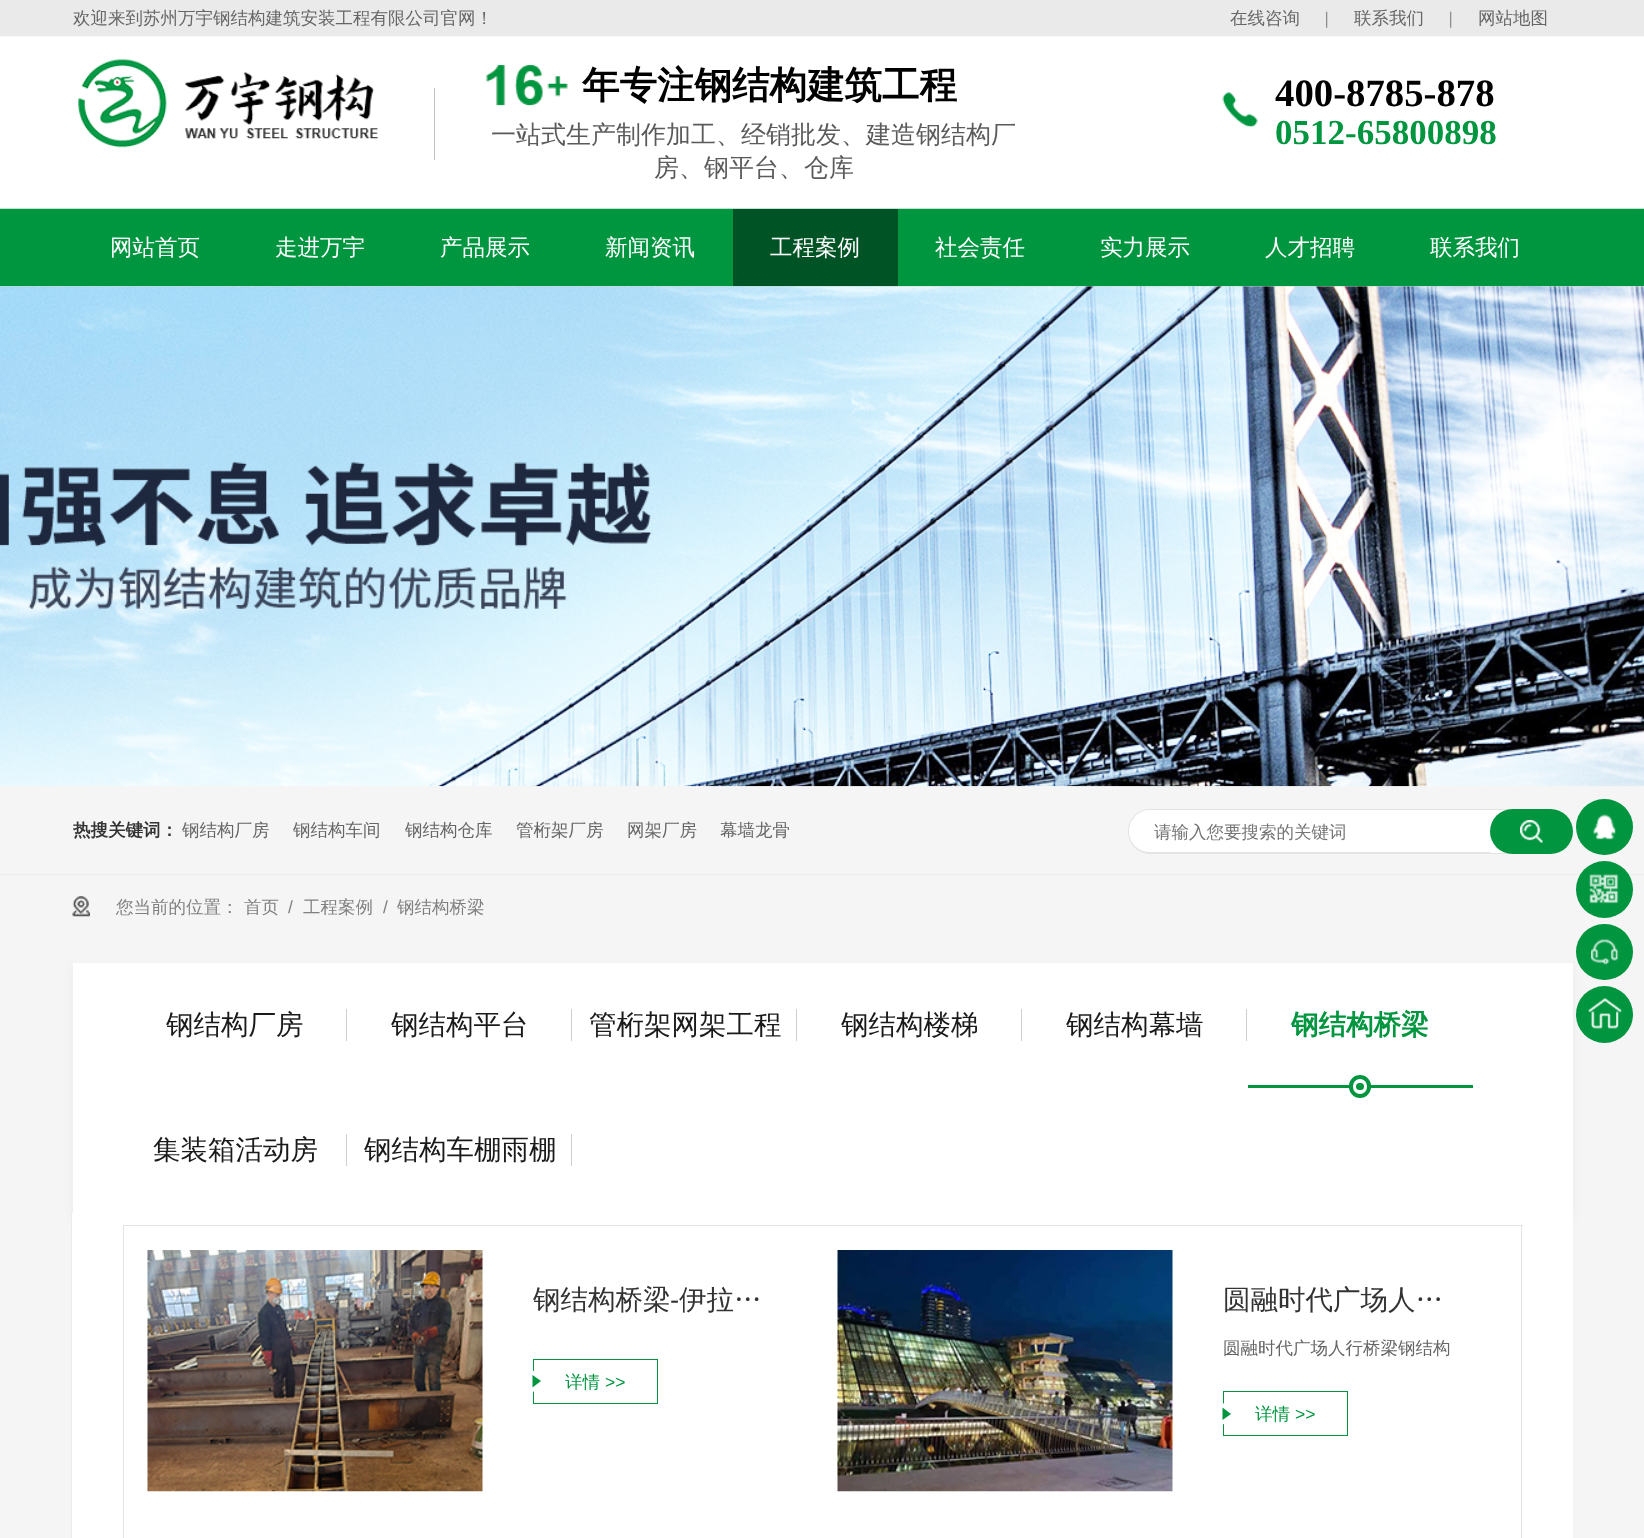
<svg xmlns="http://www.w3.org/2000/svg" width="1644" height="1538">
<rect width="100%" height="100%" fill="#f5f5f5"/>
<image x="0" y="0" width="1644" height="287" href="media/1.png"/>
<text x="73" y="24" style="font-family:WenQuanYi Zen Hei;font-size:17.5px;font-weight:500;fill:#666">欢迎来到苏州万宇钢结构建筑安装工程有限公司官网！</text>
<text x="1230" y="24" style="font-family:WenQuanYi Zen Hei;font-size:17.5px;font-weight:500;fill:#666">在线咨询</text>
<text x="1325" y="24" style="font-family:Liberation Serif;font-size:17.5px;fill:#666">|</text>
<text x="1354" y="24" style="font-family:WenQuanYi Zen Hei;font-size:17.5px;font-weight:500;fill:#666">联系我们</text>
<text x="1449" y="24" style="font-family:Liberation Serif;font-size:17.5px;fill:#666">|</text>
<text x="1478" y="24" style="font-family:WenQuanYi Zen Hei;font-size:17.5px;font-weight:500;fill:#666">网站地图</text>
<image x="78" y="59" width="301" height="89" href="media/2.png"/>
<rect x="434" y="88" width="1" height="72" fill="#bfbfbf"/>
<image x="486" y="64" width="82" height="42" href="media/3.png"/>
<text x="582" y="98" style="font-family:WenQuanYi Zen Hei;font-size:37.5px;font-weight:bold;fill:#000">年专注钢结构建筑工程</text>
<text x="491" y="143" style="font-family:WenQuanYi Zen Hei;font-size:25px;font-weight:500;fill:#5b5b5b">一站式生产制作加工、经销批发、建造钢结构厂</text>
<text x="654" y="176" style="font-family:WenQuanYi Zen Hei;font-size:25px;font-weight:500;fill:#5b5b5b">房、钢平台、仓库</text>
<image x="1222" y="92" width="36" height="35" href="media/4.png"/>
<text x="1275" y="106" style="font-family:Liberation Serif;font-size:38.75px;font-weight:bold;fill:#000">400-8785-878</text>
<text x="1275" y="144" style="font-family:Liberation Serif;font-size:35px;font-weight:bold;fill:#00953f">0512-65800898</text>
<text x="110" y="255" style="font-family:WenQuanYi Zen Hei;font-size:22.5px;font-weight:500;fill:#fff">网站首页</text>
<text x="275" y="255" style="font-family:WenQuanYi Zen Hei;font-size:22.5px;font-weight:500;fill:#fff">走进万宇</text>
<text x="440" y="255" style="font-family:WenQuanYi Zen Hei;font-size:22.5px;font-weight:500;fill:#fff">产品展示</text>
<text x="605" y="255" style="font-family:WenQuanYi Zen Hei;font-size:22.5px;font-weight:500;fill:#fff">新闻资讯</text>
<rect x="733" y="209" width="165" height="77" fill="#005324"/>
<text x="770" y="255" style="font-family:WenQuanYi Zen Hei;font-size:22.5px;font-weight:500;fill:#fff">工程案例</text>
<text x="935" y="255" style="font-family:WenQuanYi Zen Hei;font-size:22.5px;font-weight:500;fill:#fff">社会责任</text>
<text x="1100" y="255" style="font-family:WenQuanYi Zen Hei;font-size:22.5px;font-weight:500;fill:#fff">实力展示</text>
<text x="1265" y="255" style="font-family:WenQuanYi Zen Hei;font-size:22.5px;font-weight:500;fill:#fff">人才招聘</text>
<text x="1430" y="255" style="font-family:WenQuanYi Zen Hei;font-size:22.5px;font-weight:500;fill:#fff">联系我们</text>
<image x="0" y="286" width="1644" height="501" href="media/5.png"/>
<rect y="874" width="1644" height="1" fill="#ededed"/>
<text x="73" y="836" style="font-family:WenQuanYi Zen Hei;font-size:17.5px;font-weight:bold;fill:#333">热搜关键词：</text>
<text x="182" y="836" style="font-family:WenQuanYi Zen Hei;font-size:17.5px;font-weight:500;fill:#666">钢结构厂房</text>
<text x="293" y="836" style="font-family:WenQuanYi Zen Hei;font-size:17.5px;font-weight:500;fill:#666">钢结构车间</text>
<text x="405" y="836" style="font-family:WenQuanYi Zen Hei;font-size:17.5px;font-weight:500;fill:#666">钢结构仓库</text>
<text x="516" y="836" style="font-family:WenQuanYi Zen Hei;font-size:17.5px;font-weight:500;fill:#666">管桁架厂房</text>
<text x="627" y="836" style="font-family:WenQuanYi Zen Hei;font-size:17.5px;font-weight:500;fill:#666">网架厂房</text>
<text x="720" y="836" style="font-family:WenQuanYi Zen Hei;font-size:17.5px;font-weight:500;fill:#666">幕墙龙骨</text>
<rect x="1128" y="809" width="445" height="45" rx="22.5" fill="#fff"/>
<rect x="1490" y="809" width="22" height="1" fill="#e3e3e3"/>
<path d="M1150 809h340v45h-340c-12 0-22-10-22-23c0-12 10-22 22-22zm0 1h340v42h-340c-12 0-21-9-21-21c0-11 9-21 21-21z" fill="#e3e3e3" fill-rule="evenodd"/>
<text x="1154" y="838" style="font-family:WenQuanYi Zen Hei;font-size:17.5px;font-weight:500;fill:#757575">请输入您要搜索的关键词</text>
<rect x="1490" y="853" width="22" height="1" fill="#e3e3e3"/>
<rect x="1490" y="809" width="83" height="45" rx="22.5" fill="#01953f"/>
<image x="1520" y="820" width="23" height="23" href="media/6.png"/>
<rect x="1576" y="799" width="57" height="56" rx="28" fill="#01953f"/>
<image x="1593" y="814" width="23" height="26" href="media/7.png"/>
<circle cx="1604.5" cy="889.5" r="28.5" fill="#01953f"/>
<image x="1589" y="874" width="30" height="30" href="media/8.png"/>
<rect x="73" y="968" width="1500" height="250" fill="#e9e9e9" filter="blur(4px)"/>
<rect x="1576" y="924" width="57" height="56" rx="28" fill="#01953f"/>
<image x="1591" y="939" width="28" height="26" href="media/9.png"/>
<circle cx="1604.5" cy="1014.5" r="28.5" fill="#01953f"/>
<image x="1588" y="997" width="34" height="32" href="media/10.png"/>
<image x="72" y="896" width="18" height="21" href="media/11.png"/>
<text x="116" y="913" style="font-family:WenQuanYi Zen Hei;font-size:17.5px;font-weight:500;fill:#808080">您当前的位置：</text>
<text x="244" y="913" style="font-family:WenQuanYi Zen Hei;font-size:17.5px;font-weight:500;fill:#808080">首页</text>
<text x="288" y="913" style="font-family:Liberation Sans;font-size:17.5px;fill:#808080">/</text>
<text x="303" y="913" style="font-family:WenQuanYi Zen Hei;font-size:17.5px;font-weight:500;fill:#808080">工程案例</text>
<text x="383" y="913" style="font-family:Liberation Sans;font-size:17.5px;fill:#808080">/</text>
<text x="397" y="913" style="font-family:WenQuanYi Zen Hei;font-size:17.5px;font-weight:500;fill:#808080">钢结构桥梁</text>
<rect x="73" y="963" width="1500" height="250" fill="#fff"/>
<text x="166" y="1034" style="font-family:WenQuanYi Zen Hei;font-size:27.5px;font-weight:500;fill:#1a1a1a">钢结构厂房</text>
<rect x="346" y="1009" width="1" height="32" fill="#cfcfcf"/>
<text x="391" y="1034" style="font-family:WenQuanYi Zen Hei;font-size:27.5px;font-weight:500;fill:#1a1a1a">钢结构平台</text>
<rect x="571" y="1009" width="1" height="32" fill="#cfcfcf"/>
<text x="589" y="1034" style="font-family:WenQuanYi Zen Hei;font-size:27.5px;font-weight:500;fill:#1a1a1a">管桁架网架工程</text>
<rect x="796" y="1009" width="1" height="32" fill="#cfcfcf"/>
<text x="841" y="1034" style="font-family:WenQuanYi Zen Hei;font-size:27.5px;font-weight:500;fill:#1a1a1a">钢结构楼梯</text>
<rect x="1021" y="1009" width="1" height="32" fill="#cfcfcf"/>
<text x="1066" y="1034" style="font-family:WenQuanYi Zen Hei;font-size:27.5px;font-weight:500;fill:#1a1a1a">钢结构幕墙</text>
<rect x="1246" y="1009" width="1" height="32" fill="#cfcfcf"/>
<text x="1291" y="1034" style="font-family:WenQuanYi Zen Hei;font-size:27.5px;font-weight:bold;fill:#00953f">钢结构桥梁</text>
<rect x="1248" y="1085" width="225" height="3" fill="#00953f"/>
<rect x="1351" y="1077" width="18" height="19" rx="9" fill="#fff" stroke="#01953f" stroke-width="4"/>
<rect x="1356" y="1083" width="8" height="7" rx="3.5" fill="#01953f"/>
<text x="153" y="1159" style="font-family:WenQuanYi Zen Hei;font-size:27.5px;font-weight:500;fill:#1a1a1a">集装箱活动房</text>
<rect x="346" y="1134" width="1" height="32" fill="#cfcfcf"/>
<text x="364" y="1159" style="font-family:WenQuanYi Zen Hei;font-size:27.5px;font-weight:500;fill:#1a1a1a">钢结构车棚雨棚</text>
<rect x="571" y="1134" width="1" height="32" fill="#cfcfcf"/>
<rect x="72" y="1213" width="1501" height="325" fill="#fff"/>
<rect x="71" y="1213" width="1" height="325" fill="#ebebeb"/>
<rect x="123" y="1225" width="1400" height="1" fill="#e3e3e3"/>
<rect x="1521" y="1225" width="1" height="313" fill="#e3e3e3"/>
<rect x="123" y="1225" width="1" height="313" fill="#e3e3e3"/>
<image x="147" y="1250" width="336" height="242" href="media/12.png"/>
<text x="533" y="1309" style="font-family:WenQuanYi Zen Hei;font-size:27.5px;font-weight:500;fill:#333">钢结构桥梁</text>
<text x="670" y="1309" style="font-family:Liberation Sans;font-size:27.5px;fill:#333">-</text>
<text x="679" y="1309" style="font-family:WenQuanYi Zen Hei;font-size:27.5px;font-weight:500;fill:#333">伊拉…</text>
<rect x="533.5" y="1359.5" width="124" height="44" fill="none" stroke="#01953f"/>
<path d="M532.5 1392.5v-22.5l12.5 11z" fill="#fff"/>
<text x="565" y="1388" style="font-family:WenQuanYi Zen Hei;font-size:17.5px;font-weight:500;fill:#00953f">详情</text>
<path d="M532.5 1387.5v-12.5l8.5 6z" fill="#01953f"/>
<text x="605" y="1388" style="font-family:Liberation Sans;font-size:17.5px;fill:#00953f">&gt;&gt;</text>
<image x="837" y="1250" width="336" height="242" href="media/13.png"/>
<text x="1223" y="1309" style="font-family:WenQuanYi Zen Hei;font-size:27.5px;font-weight:500;fill:#333">圆融时代广场人…</text>
<text x="1223" y="1354" style="font-family:WenQuanYi Zen Hei;font-size:17.5px;font-weight:500;fill:#666">圆融时代广场人行桥梁钢结构</text>
<rect x="1223.5" y="1391.5" width="124" height="44" fill="none" stroke="#01953f"/>
<path d="M1222.5 1425v-22.5l12.5 11.5z" fill="#fff"/>
<text x="1255" y="1420" style="font-family:WenQuanYi Zen Hei;font-size:17.5px;font-weight:500;fill:#00953f">详情</text>
<path d="M1222.5 1420v-12.5l8.5 6.5z" fill="#01953f"/>
<text x="1295" y="1420" style="font-family:Liberation Sans;font-size:17.5px;fill:#00953f">&gt;&gt;</text>
</svg>
